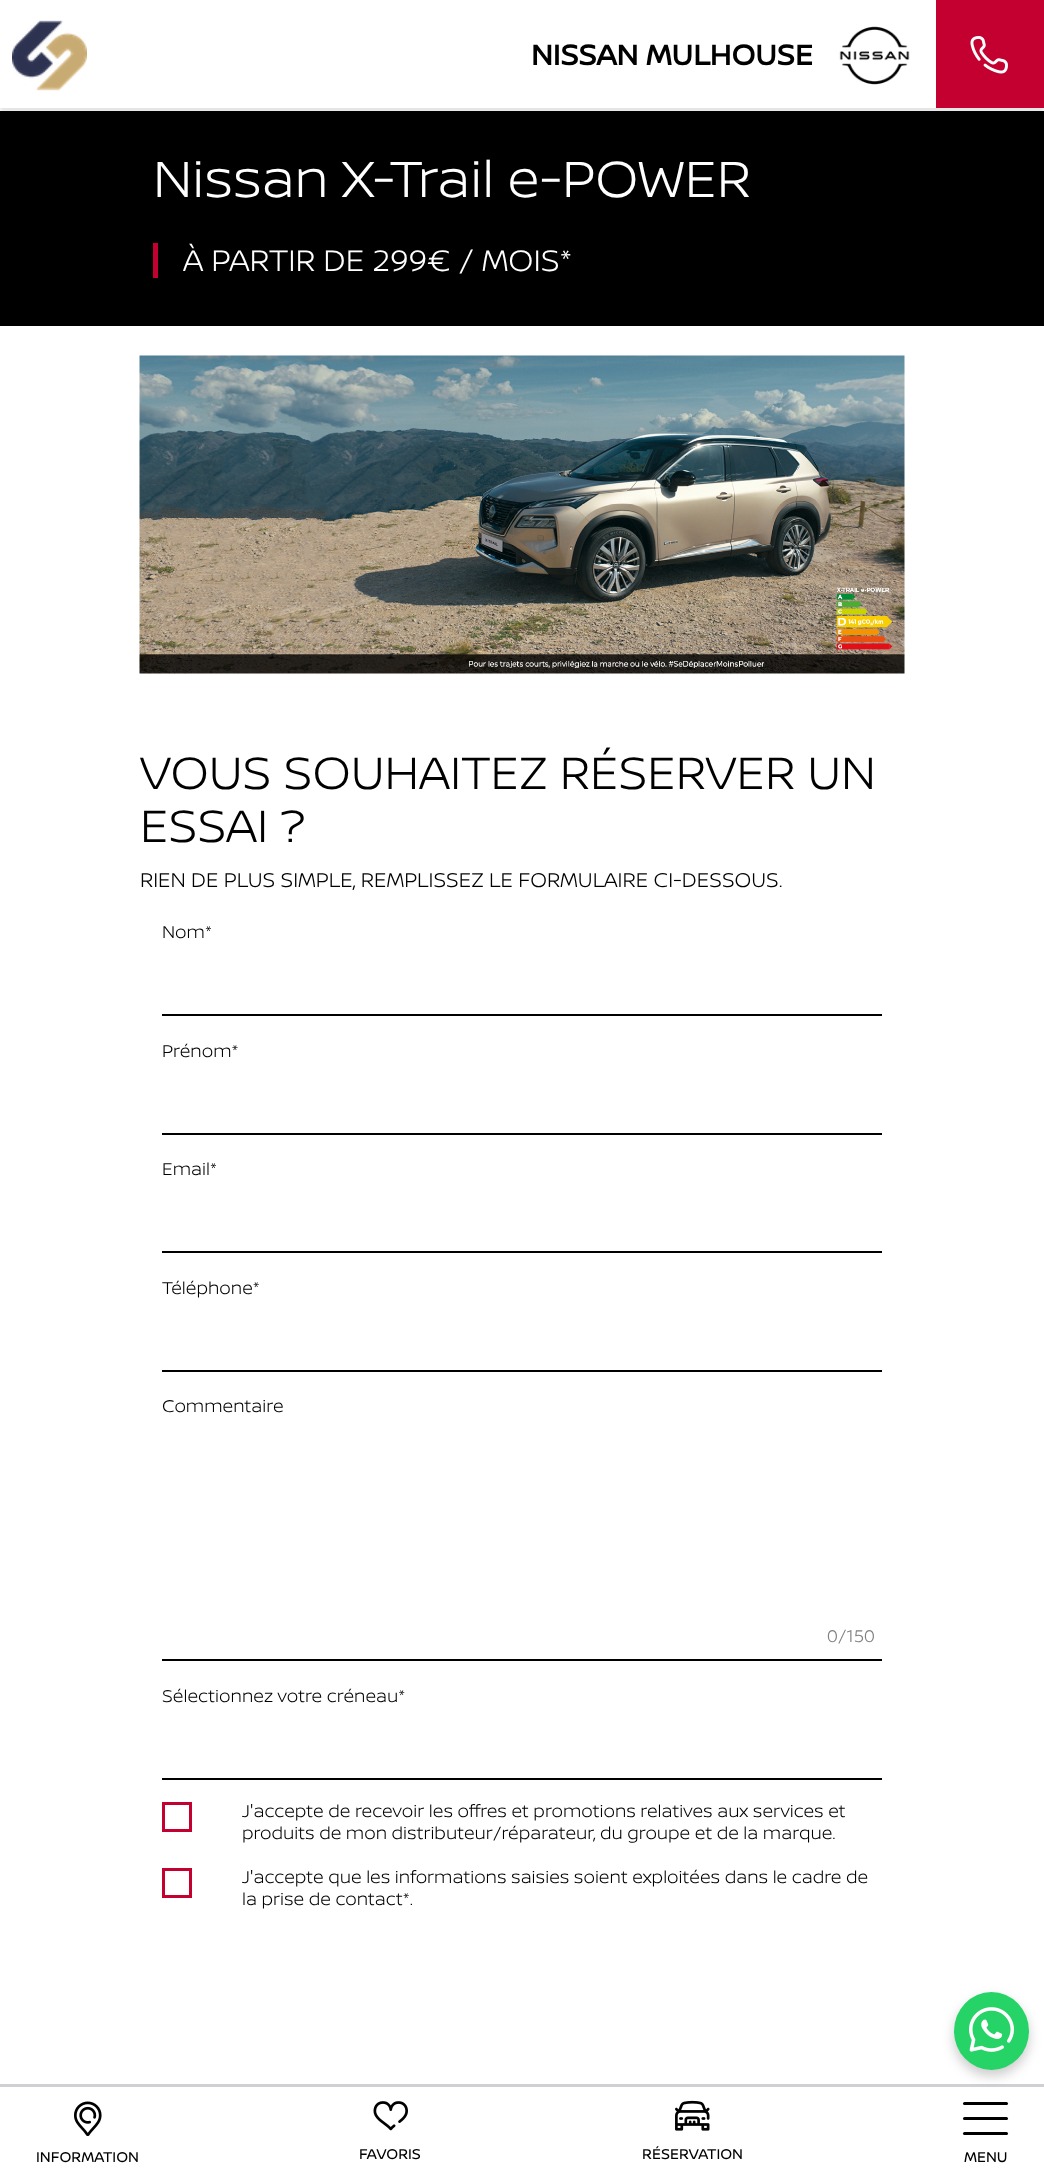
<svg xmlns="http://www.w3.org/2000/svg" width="1044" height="2175">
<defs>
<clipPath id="clip1"><rect x="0" y="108" width="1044" height="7"/></clipPath>
</defs>
<rect width="100%" height="100%" fill="#fff"/>
<path d="M431 326h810v-215h-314v215z" fill="#000"/>
<path d="M-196 111v215h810h-497v-215z" fill="#000"/>
<rect x="117" y="111" width="810" height="215" fill="#000"/>
<g clip-path="url(#clip1)">
<rect y="5" width="1044" height="108" fill="#0000001a" filter="blur(2px)"/>
</g>
<image x="12" y="20" width="75" height="71" href="media/1.png"/>
<text x="531" y="65" style="font-family:'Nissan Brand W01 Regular';font-size:30px;font-weight:bold;fill:#000">NISSAN MULHOUSE</text>
<image x="839" y="26" width="71" height="59" href="media/2.png"/>
<rect x="936" width="108" height="108" fill="#c3002f"/>
<image x="970" y="36" width="38" height="38" href="media/3.png"/>
<rect y="2084" width="1044" height="3" fill="#ced0d3"/>
<image x="74" y="2101" width="28" height="35" href="media/4.png"/>
<text x="36" y="2162" style="font-family:'Nissan Brand W01 Regular';font-size:15px;fill:#000">INFORMATION</text>
<image x="373" y="2101" width="35" height="30" href="media/5.png"/>
<text x="359" y="2159" style="font-family:'Nissan Brand W01 Regular';font-size:15px;fill:#000">FAVORIS</text>
<image x="675" y="2100" width="35" height="31" href="media/6.png"/>
<text x="642" y="2159" style="font-family:'Nissan Brand W01 Regular';font-size:15px;fill:#000">RÉSERVATION</text>
<rect x="963" y="2102" width="45" height="3" rx="1.5" fill="#000"/>
<rect x="963" y="2117" width="45" height="3" rx="1.5" fill="#000"/>
<rect x="963" y="2132" width="45" height="3" rx="1.5" fill="#000"/>
<text x="964" y="2162" style="font-family:'Nissan Brand W01 Regular';font-size:15px;fill:#000">MENU</text>
<text x="153" y="197" style="font-family:'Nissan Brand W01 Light';font-size:54px;font-weight:300;fill:#fff">Nissan X-Trail e-POWER</text>
<rect x="153" y="243" width="5" height="35" fill="#c3002f"/>
<text x="183" y="271" style="font-family:'Nissan Brand W01 Light';font-size:31.5px;font-weight:300;fill:#fff">À PARTIR DE 299€ / MOIS*</text>
<image x="139" y="355" width="766" height="319" href="media/7.png"/>
<text x="140" y="789" style="font-family:'Nissan Brand W01 Light';font-size:48px;font-weight:300;fill:#000">VOUS SOUHAITEZ RÉSERVER UN</text>
<text x="140" y="842" style="font-family:'Nissan Brand W01 Light';font-size:48px;font-weight:300;fill:#000">ESSAI ?</text>
<text x="140" y="887" style="font-family:'Nissan Brand W01 Light';font-size:21px;font-weight:300;fill:#000">RIEN DE PLUS SIMPLE, REMPLISSEZ LE FORMULAIRE CI-DESSOUS.</text>
<text x="162" y="938" style="font-family:'Nissan Brand W01 Light';font-size:18px;font-weight:300;fill:#000">Nom*</text>
<rect x="162" y="1014" width="720" height="2" fill="#000"/>
<text x="162" y="1057" style="font-family:'Nissan Brand W01 Light';font-size:18px;font-weight:300;fill:#000">Prénom*</text>
<rect x="162" y="1133" width="720" height="2" fill="#000"/>
<text x="162" y="1175" style="font-family:'Nissan Brand W01 Light';font-size:18px;font-weight:300;fill:#000">Email*</text>
<rect x="162" y="1251" width="720" height="2" fill="#000"/>
<text x="162" y="1294" style="font-family:'Nissan Brand W01 Light';font-size:18px;font-weight:300;fill:#000">Téléphone*</text>
<rect x="162" y="1370" width="720" height="2" fill="#000"/>
<text x="162" y="1412" style="font-family:'Nissan Brand W01 Light';font-size:18px;font-weight:300;fill:#000">Commentaire</text>
<text x="827" y="1642" style="font-family:'Nissan Brand W01 Light';font-size:18px;font-weight:300;fill:#808080">0/150</text>
<rect x="162" y="1659" width="720" height="2" fill="#000"/>
<text x="162" y="1702" style="font-family:'Nissan Brand W01 Light';font-size:18px;font-weight:300;fill:#000">Sélectionnez votre créneau*</text>
<rect x="162" y="1778" width="720" height="2" fill="#000"/>
<rect x="163.5" y="1803.5" width="27" height="27" fill="none" stroke="#c3002f" stroke-width="3"/>
<text x="242" y="1817" style="font-family:'Nissan Brand W01 Light';font-size:18px;font-weight:300;fill:#000">J'accepte de recevoir les offres et promotions relatives aux services et</text>
<text x="242" y="1839" style="font-family:'Nissan Brand W01 Light';font-size:18px;font-weight:300;fill:#000">produits de mon distributeur/réparateur, du groupe et de la marque.</text>
<rect x="163.5" y="1869.5" width="27" height="27" fill="none" stroke="#c3002f" stroke-width="3"/>
<text x="242" y="1883" style="font-family:'Nissan Brand W01 Light';font-size:18px;font-weight:300;fill:#000">J'accepte que les informations saisies soient exploitées dans le cadre de</text>
<text x="242" y="1905" style="font-family:'Nissan Brand W01 Light';font-size:18px;font-weight:300;fill:#000">la prise de contact*.</text>
<rect x="954" y="1998" width="75" height="78" rx="37.5" fill="#00000033" filter="blur(6px)"/>
<ellipse cx="991.5" cy="2031" rx="37.5" ry="39" fill="#25d366"/>
<image x="969" y="2007" width="45" height="45" href="media/8.png"/>
</svg>
